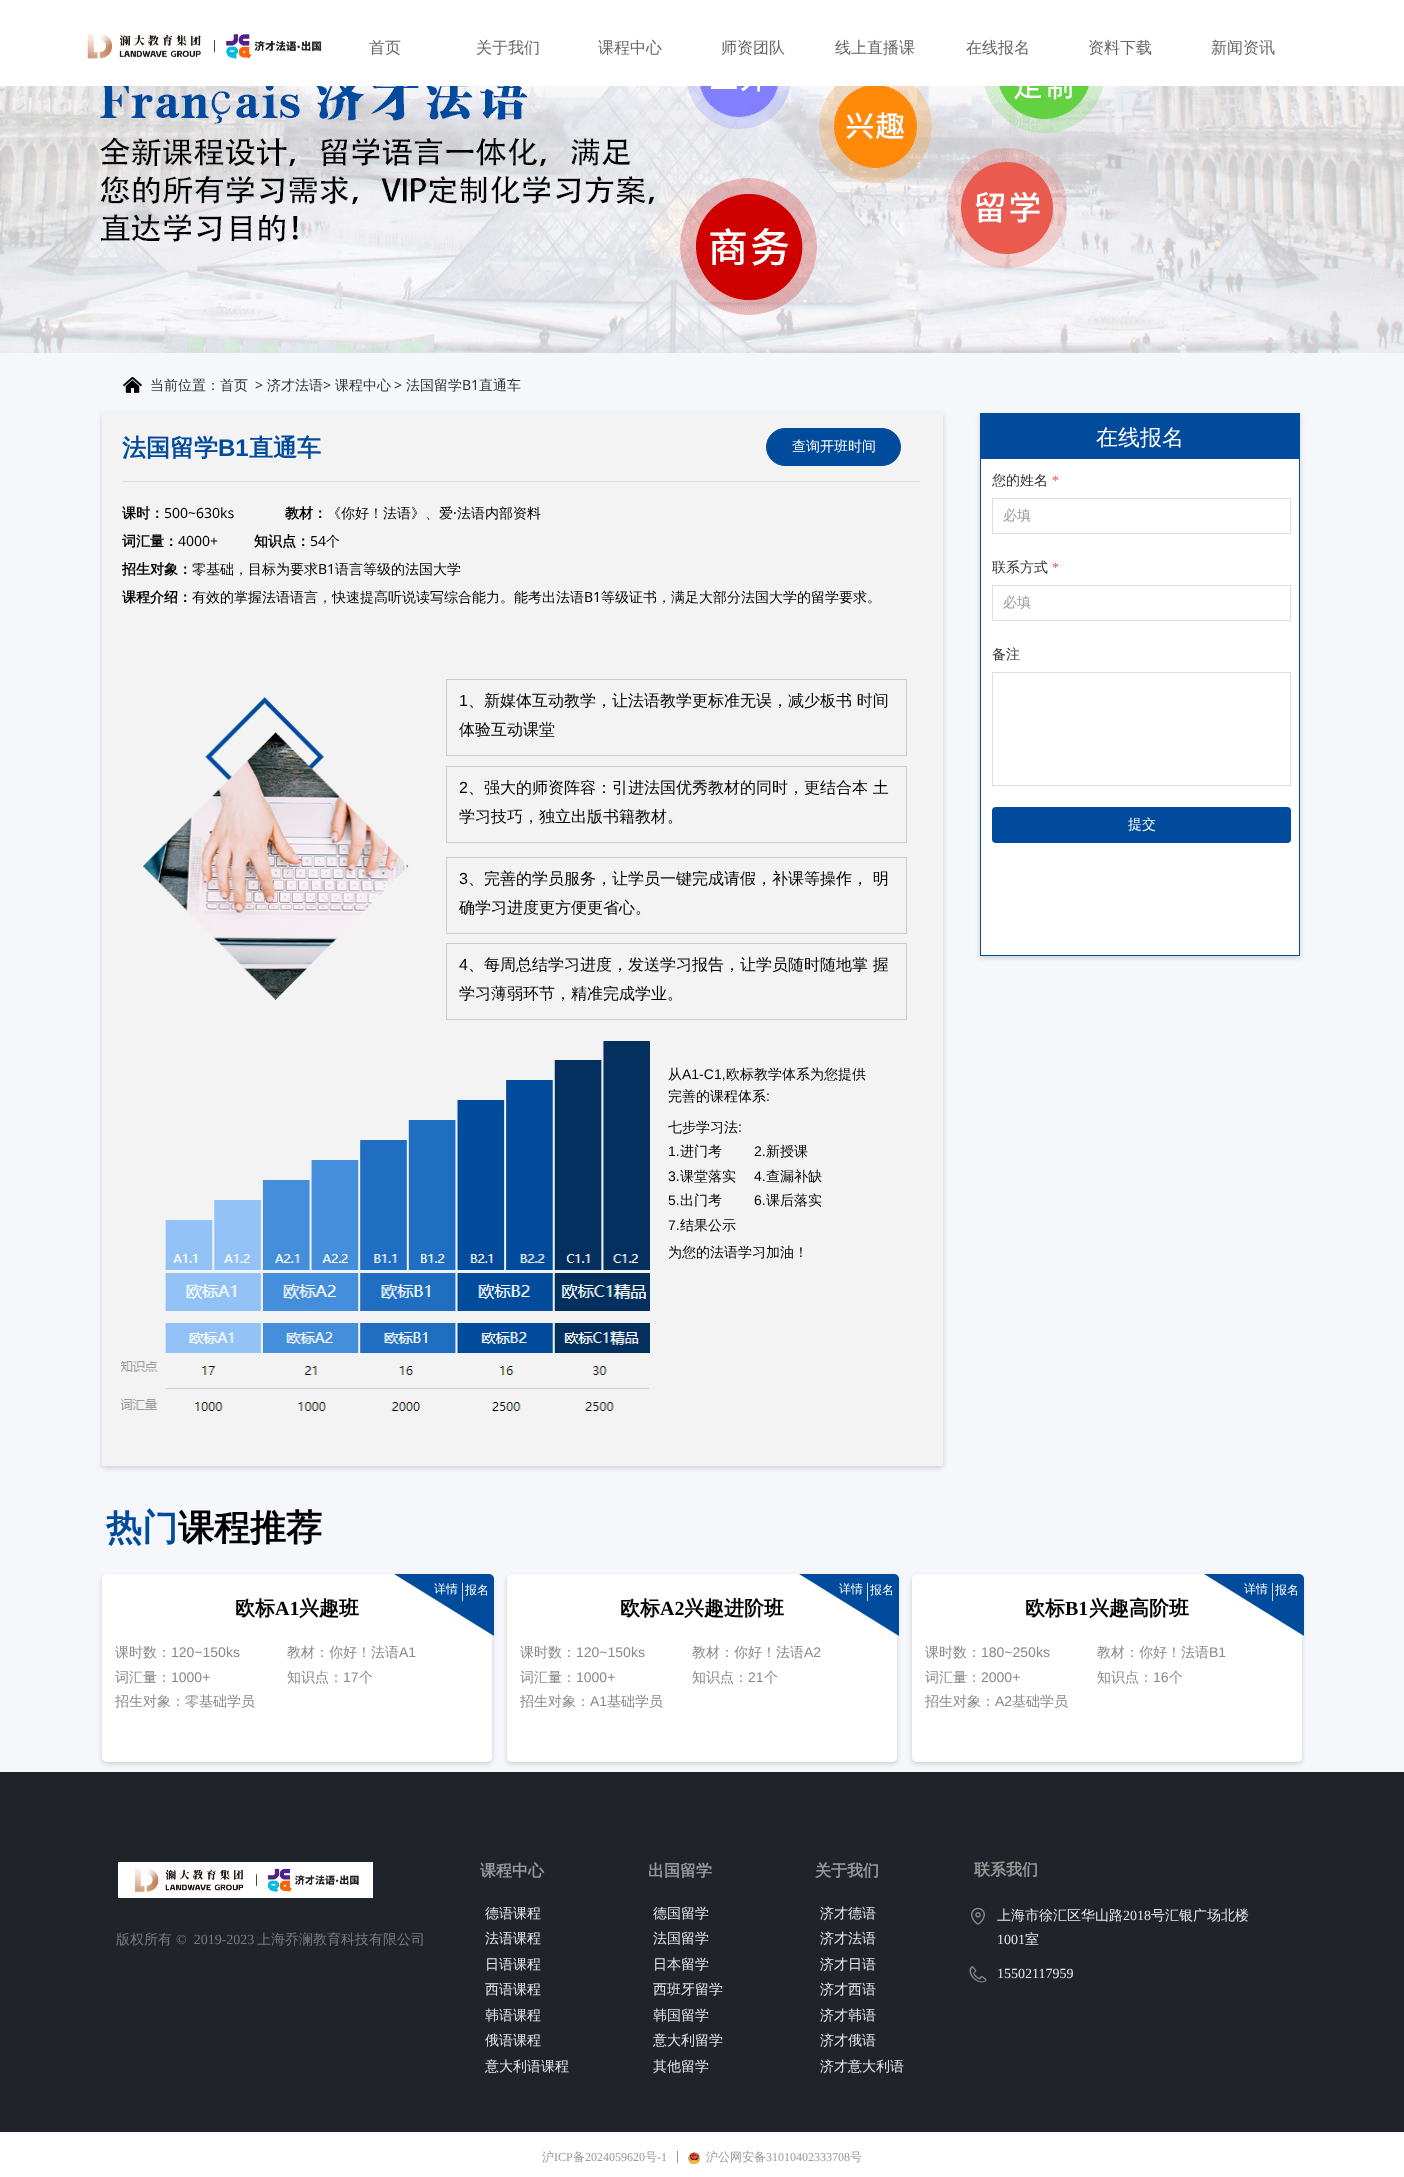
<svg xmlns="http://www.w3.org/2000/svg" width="1404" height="2177">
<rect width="100%" height="100%" fill="#fff"/>
<image x="87" y="34" width="235" height="25" href="media/1.png"/>
<text x="369" y="53" style="font-family:WenQuanYi Zen Hei;font-size:16px;font-weight:500;fill:#666">首页</text>
<text x="476" y="53" style="font-family:WenQuanYi Zen Hei;font-size:16px;font-weight:500;fill:#666">关于我们</text>
<text x="598" y="53" style="font-family:WenQuanYi Zen Hei;font-size:16px;font-weight:500;fill:#666">课程中心</text>
<text x="721" y="53" style="font-family:WenQuanYi Zen Hei;font-size:16px;font-weight:500;fill:#666">师资团队</text>
<text x="835" y="53" style="font-family:WenQuanYi Zen Hei;font-size:16px;font-weight:500;fill:#666">线上直播课</text>
<text x="966" y="53" style="font-family:WenQuanYi Zen Hei;font-size:16px;font-weight:500;fill:#666">在线报名</text>
<text x="1088" y="53" style="font-family:WenQuanYi Zen Hei;font-size:16px;font-weight:500;fill:#666">资料下载</text>
<text x="1211" y="53" style="font-family:WenQuanYi Zen Hei;font-size:16px;font-weight:500;fill:#666">新闻资讯</text>
<rect y="353" width="1404" height="1419" fill="#f6f7fb"/>
<image x="0" y="86" width="1404" height="267" href="media/2.png"/>
<image x="123" y="376" width="19" height="17" href="media/3.png"/>
<text x="150" y="390" style="font-family:WenQuanYi Zen Hei;font-size:14px;font-weight:500;fill:#333">当前位置：首页</text>
<text x="255" y="390" style="font-family:Noto Sans;font-size:14px;fill:#333">&gt;</text>
<text x="267" y="390" style="font-family:WenQuanYi Zen Hei;font-size:14px;font-weight:500;fill:#333">济才法语</text>
<text x="323" y="390" style="font-family:Noto Sans;font-size:14px;fill:#333">&gt;</text>
<text x="335" y="390" style="font-family:WenQuanYi Zen Hei;font-size:14px;font-weight:500;fill:#333">课程中心</text>
<text x="394" y="390" style="font-family:Noto Sans;font-size:14px;fill:#333">&gt;</text>
<text x="406" y="390" style="font-family:WenQuanYi Zen Hei;font-size:14px;font-weight:500;fill:#333">法国留学</text>
<text x="462" y="390" style="font-family:Noto Sans;font-size:14px;fill:#333">B1</text>
<text x="479" y="390" style="font-family:WenQuanYi Zen Hei;font-size:14px;font-weight:500;fill:#333">直通车</text>
<rect x="102" y="415" width="841" height="1053" fill="#44444438" filter="blur(2.5px)"/>
<rect x="102" y="413" width="841" height="1053" fill="#f3f3f3"/>
<text x="122" y="456" style="font-family:WenQuanYi Zen Hei;font-size:24px;font-weight:bold;fill:#004b9c">法国留学</text>
<text x="218" y="456" style="font-family:Liberation Sans;font-size:24px;font-weight:bold;fill:#004b9c">B1</text>
<text x="249" y="456" style="font-family:WenQuanYi Zen Hei;font-size:24px;font-weight:bold;fill:#004b9c">直通车</text>
<rect x="766.5" y="428.5" width="134" height="37" rx="18.5" fill="#004b9c" stroke="#004b9c"/>
<text x="792" y="451" style="font-family:WenQuanYi Zen Hei;font-size:14px;font-weight:500;fill:#fff">查询开班时间</text>
<rect x="123" y="481" width="797" height="1" fill="#ddd"/>
<text x="122" y="518" style="font-family:WenQuanYi Zen Hei;font-size:14px;font-weight:bold;fill:#000">课时：</text>
<text x="164" y="518" style="font-family:Noto Sans;font-size:14px;fill:#000">500~630ks</text>
<text x="285" y="518" style="font-family:WenQuanYi Zen Hei;font-size:14px;font-weight:bold;fill:#000">教材：</text>
<text x="327" y="518" style="font-family:WenQuanYi Zen Hei;font-size:14px;font-weight:500;fill:#000">《你好！法语》、爱</text>
<text x="453" y="518" style="font-family:Noto Sans;font-size:14px;fill:#000">·</text>
<text x="457" y="518" style="font-family:WenQuanYi Zen Hei;font-size:14px;font-weight:500;fill:#000">法语内部资料</text>
<text x="122" y="546" style="font-family:WenQuanYi Zen Hei;font-size:14px;font-weight:bold;fill:#000">词汇量：</text>
<text x="178" y="546" style="font-family:Noto Sans;font-size:14px;fill:#000">4000+</text>
<text x="254" y="546" style="font-family:WenQuanYi Zen Hei;font-size:14px;font-weight:bold;fill:#000">知识点：</text>
<text x="310" y="546" style="font-family:Noto Sans;font-size:14px;fill:#000">54</text>
<text x="326" y="546" style="font-family:WenQuanYi Zen Hei;font-size:14px;font-weight:500;fill:#000">个</text>
<text x="122" y="574" style="font-family:WenQuanYi Zen Hei;font-size:14px;font-weight:bold;fill:#000">招生对象：</text>
<text x="192" y="574" style="font-family:WenQuanYi Zen Hei;font-size:14px;font-weight:500;fill:#000">零基础，目标为要求</text>
<text x="318" y="574" style="font-family:Noto Sans;font-size:14px;fill:#000">B1</text>
<text x="335" y="574" style="font-family:WenQuanYi Zen Hei;font-size:14px;font-weight:500;fill:#000">语言等级的法国大学</text>
<text x="122" y="602" style="font-family:WenQuanYi Zen Hei;font-size:14px;font-weight:bold;fill:#000">课程介绍：</text>
<text x="192" y="602" style="font-family:WenQuanYi Zen Hei;font-size:14px;font-weight:500;fill:#000">有效的掌握法语语言，快速提高听说读写综合能力。能考出法语</text>
<text x="584" y="602" style="font-family:Noto Sans;font-size:14px;fill:#000">B1</text>
<text x="601" y="602" style="font-family:WenQuanYi Zen Hei;font-size:14px;font-weight:500;fill:#000">等级证书，满足大部分法国大学的留学要求。</text>
<image x="143" y="697" width="266" height="304" href="media/4.png"/>
<rect x="446.5" y="679.5" width="460" height="76" fill="none" stroke="#ccc"/>
<text x="459" y="706" style="font-family:Liberation Sans;font-size:16px;fill:#000">1</text>
<text x="468" y="706" style="font-family:WenQuanYi Zen Hei;font-size:16px;font-weight:500;fill:#000">、新媒体互动教学，让法语教学更标准无误，减少板书 时间</text>
<text x="459" y="735" style="font-family:WenQuanYi Zen Hei;font-size:16px;font-weight:500;fill:#000">体验互动课堂</text>
<rect x="446.5" y="766.5" width="460" height="76" fill="none" stroke="#ccc"/>
<text x="459" y="793" style="font-family:Liberation Sans;font-size:16px;fill:#000">2</text>
<text x="468" y="793" style="font-family:WenQuanYi Zen Hei;font-size:16px;font-weight:500;fill:#000">、强大的师资阵容：引进法国优秀教材的同时，更结合本 土</text>
<text x="459" y="822" style="font-family:WenQuanYi Zen Hei;font-size:16px;font-weight:500;fill:#000">学习技巧，独立出版书籍教材。</text>
<rect x="446.5" y="857.5" width="460" height="76" fill="none" stroke="#ccc"/>
<text x="459" y="884" style="font-family:Liberation Sans;font-size:16px;fill:#000">3</text>
<text x="468" y="884" style="font-family:WenQuanYi Zen Hei;font-size:16px;font-weight:500;fill:#000">、完善的学员服务，让学员一键完成请假，补课等操作， 明</text>
<text x="459" y="913" style="font-family:WenQuanYi Zen Hei;font-size:16px;font-weight:500;fill:#000">确学习进度更方便更省心。</text>
<rect x="446.5" y="943.5" width="460" height="76" fill="none" stroke="#ccc"/>
<text x="459" y="970" style="font-family:Liberation Sans;font-size:16px;fill:#000">4</text>
<text x="468" y="970" style="font-family:WenQuanYi Zen Hei;font-size:16px;font-weight:500;fill:#000">、每周总结学习进度，发送学习报告，让学员随时随地掌 握</text>
<text x="459" y="999" style="font-family:WenQuanYi Zen Hei;font-size:16px;font-weight:500;fill:#000">学习薄弱环节，精准完成学业。</text>
<image x="121" y="1041" width="529" height="375" href="media/5.png"/>
<text x="668" y="1079" style="font-family:WenQuanYi Zen Hei;font-size:14px;font-weight:500;fill:#000">从</text>
<text x="682" y="1079" style="font-family:Liberation Sans;font-size:14px;fill:#000">A1-C1,</text>
<text x="726" y="1079" style="font-family:WenQuanYi Zen Hei;font-size:14px;font-weight:500;fill:#000">欧标教学体系为您提供</text>
<text x="668" y="1101" style="font-family:WenQuanYi Zen Hei;font-size:14px;font-weight:500;fill:#000">完善的课程体系</text>
<text x="766" y="1101" style="font-family:Liberation Sans;font-size:14px;fill:#000">:</text>
<text x="668" y="1132" style="font-family:WenQuanYi Zen Hei;font-size:14px;font-weight:500;fill:#000">七步学习法</text>
<text x="738" y="1132" style="font-family:Liberation Sans;font-size:14px;fill:#000">:</text>
<text x="668" y="1156" style="font-family:Liberation Sans;font-size:14px;fill:#000">1.</text>
<text x="680" y="1156" style="font-family:WenQuanYi Zen Hei;font-size:14px;font-weight:500;fill:#000">进门考</text>
<text x="668" y="1181" style="font-family:Liberation Sans;font-size:14px;fill:#000">3.</text>
<text x="680" y="1181" style="font-family:WenQuanYi Zen Hei;font-size:14px;font-weight:500;fill:#000">课堂落实</text>
<text x="668" y="1205" style="font-family:Liberation Sans;font-size:14px;fill:#000">5.</text>
<text x="680" y="1205" style="font-family:WenQuanYi Zen Hei;font-size:14px;font-weight:500;fill:#000">出门考</text>
<text x="668" y="1230" style="font-family:Liberation Sans;font-size:14px;fill:#000">7.</text>
<text x="680" y="1230" style="font-family:WenQuanYi Zen Hei;font-size:14px;font-weight:500;fill:#000">结果公示</text>
<text x="754" y="1156" style="font-family:Liberation Sans;font-size:14px;fill:#000">2.</text>
<text x="766" y="1156" style="font-family:WenQuanYi Zen Hei;font-size:14px;font-weight:500;fill:#000">新授课</text>
<text x="754" y="1181" style="font-family:Liberation Sans;font-size:14px;fill:#000">4.</text>
<text x="766" y="1181" style="font-family:WenQuanYi Zen Hei;font-size:14px;font-weight:500;fill:#000">查漏补缺</text>
<text x="754" y="1205" style="font-family:Liberation Sans;font-size:14px;fill:#000">6.</text>
<text x="766" y="1205" style="font-family:WenQuanYi Zen Hei;font-size:14px;font-weight:500;fill:#000">课后落实</text>
<text x="668" y="1257" style="font-family:WenQuanYi Zen Hei;font-size:14px;font-weight:500;fill:#000">为您的法语学习加油！</text>
<rect x="980" y="415" width="320" height="543" fill="#44444436" filter="blur(2.5px)"/>
<rect x="980" y="413" width="320" height="543" fill="#004b9c"/>
<text x="1096" y="445" style="font-family:WenQuanYi Zen Hei;font-size:22px;font-weight:500;fill:#fff">在线报名</text>
<rect x="981" y="459" width="318" height="496" fill="#fff"/>
<text x="992" y="485" style="font-family:WenQuanYi Zen Hei;font-size:14px;font-weight:500;fill:#333">您的姓名</text>
<text x="1052" y="485" style="font-family:Liberation Serif;font-size:14px;fill:#e75845">*</text>
<rect x="992.5" y="498.5" width="298" height="35" fill="none" stroke="#ddd"/>
<text x="1003" y="520" style="font-family:WenQuanYi Zen Hei;font-size:14px;font-weight:500;fill:#999">必填</text>
<text x="992" y="572" style="font-family:WenQuanYi Zen Hei;font-size:14px;font-weight:500;fill:#333">联系方式</text>
<text x="1052" y="572" style="font-family:Liberation Serif;font-size:14px;fill:#e75845">*</text>
<rect x="992.5" y="585.5" width="298" height="35" fill="none" stroke="#ddd"/>
<text x="1003" y="607" style="font-family:WenQuanYi Zen Hei;font-size:14px;font-weight:500;fill:#999">必填</text>
<text x="992" y="659" style="font-family:WenQuanYi Zen Hei;font-size:14px;font-weight:500;fill:#333">备注</text>
<rect x="992.5" y="672.5" width="298" height="113" fill="none" stroke="#ddd"/>
<rect x="992" y="807" width="299" height="36" rx="4" fill="#004b9c"/>
<text x="1128" y="829" style="font-family:WenQuanYi Zen Hei;font-size:14px;font-weight:500;fill:#fff">提交</text>
<text x="106" y="1540" style="font-family:WenQuanYi Zen Hei;font-size:36px;font-weight:bold;fill:#004b9c">热门</text>
<text x="178" y="1540" style="font-family:WenQuanYi Zen Hei;font-size:36px;font-weight:bold;fill:#000">课程推荐</text>
<rect x="102" y="1576" width="390" height="188" rx="5" fill="#00000029" filter="blur(2.5px)"/>
<rect x="102" y="1574" width="390" height="188" rx="5" fill="#fff"/>
<image x="394" y="1574" width="100" height="62" href="media/6.png"/>
<text x="434" y="1593" style="font-family:WenQuanYi Zen Hei;font-size:12px;font-weight:500;fill:#fff">详情</text>
<rect x="462" y="1583" width="1" height="18" fill="#ddd"/>
<text x="465" y="1594" style="font-family:WenQuanYi Zen Hei;font-size:12px;font-weight:500;fill:#fff">报名</text>
<text x="235" y="1615" style="font-family:WenQuanYi Zen Hei;font-size:20px;font-weight:bold;fill:#000">欧标</text>
<text x="275" y="1615" style="font-family:Liberation Serif;font-size:20px;font-weight:bold;fill:#000">A1</text>
<text x="299" y="1615" style="font-family:WenQuanYi Zen Hei;font-size:20px;font-weight:bold;fill:#000">兴趣班</text>
<text x="115" y="1657" style="font-family:WenQuanYi Zen Hei;font-size:14px;font-weight:500;fill:#888">课时数：</text>
<text x="171" y="1657" style="font-family:Liberation Sans;font-size:14px;fill:#888">120~150ks</text>
<text x="115" y="1682" style="font-family:WenQuanYi Zen Hei;font-size:14px;font-weight:500;fill:#888">词汇量：</text>
<text x="171" y="1682" style="font-family:Liberation Sans;font-size:14px;fill:#888">1000+</text>
<text x="115" y="1706" style="font-family:WenQuanYi Zen Hei;font-size:14px;font-weight:500;fill:#888">招生对象：零基础学员</text>
<text x="287" y="1657" style="font-family:WenQuanYi Zen Hei;font-size:14px;font-weight:500;fill:#888">教材：你好！法语</text>
<text x="399" y="1657" style="font-family:Liberation Sans;font-size:14px;fill:#888">A1</text>
<text x="287" y="1682" style="font-family:WenQuanYi Zen Hei;font-size:14px;font-weight:500;fill:#888">知识点：</text>
<text x="343" y="1682" style="font-family:Liberation Sans;font-size:14px;fill:#888">17</text>
<text x="359" y="1682" style="font-family:WenQuanYi Zen Hei;font-size:14px;font-weight:500;fill:#888">个</text>
<rect x="507" y="1576" width="390" height="188" rx="5" fill="#00000029" filter="blur(2.5px)"/>
<rect x="507" y="1574" width="390" height="188" rx="5" fill="#fff"/>
<image x="799" y="1574" width="100" height="62" href="media/7.png"/>
<text x="839" y="1593" style="font-family:WenQuanYi Zen Hei;font-size:12px;font-weight:500;fill:#fff">详情</text>
<rect x="867" y="1583" width="1" height="18" fill="#ddd"/>
<text x="870" y="1594" style="font-family:WenQuanYi Zen Hei;font-size:12px;font-weight:500;fill:#fff">报名</text>
<text x="620" y="1615" style="font-family:WenQuanYi Zen Hei;font-size:20px;font-weight:bold;fill:#000">欧标</text>
<text x="660" y="1615" style="font-family:Liberation Serif;font-size:20px;font-weight:bold;fill:#000">A2</text>
<text x="684" y="1615" style="font-family:WenQuanYi Zen Hei;font-size:20px;font-weight:bold;fill:#000">兴趣进阶班</text>
<text x="520" y="1657" style="font-family:WenQuanYi Zen Hei;font-size:14px;font-weight:500;fill:#888">课时数：</text>
<text x="576" y="1657" style="font-family:Liberation Sans;font-size:14px;fill:#888">120~150ks</text>
<text x="520" y="1682" style="font-family:WenQuanYi Zen Hei;font-size:14px;font-weight:500;fill:#888">词汇量：</text>
<text x="576" y="1682" style="font-family:Liberation Sans;font-size:14px;fill:#888">1000+</text>
<text x="520" y="1706" style="font-family:WenQuanYi Zen Hei;font-size:14px;font-weight:500;fill:#888">招生对象：</text>
<text x="590" y="1706" style="font-family:Liberation Sans;font-size:14px;fill:#888">A1</text>
<text x="607" y="1706" style="font-family:WenQuanYi Zen Hei;font-size:14px;font-weight:500;fill:#888">基础学员</text>
<text x="692" y="1657" style="font-family:WenQuanYi Zen Hei;font-size:14px;font-weight:500;fill:#888">教材：你好！法语</text>
<text x="804" y="1657" style="font-family:Liberation Sans;font-size:14px;fill:#888">A2</text>
<text x="692" y="1682" style="font-family:WenQuanYi Zen Hei;font-size:14px;font-weight:500;fill:#888">知识点：</text>
<text x="748" y="1682" style="font-family:Liberation Sans;font-size:14px;fill:#888">21</text>
<text x="764" y="1682" style="font-family:WenQuanYi Zen Hei;font-size:14px;font-weight:500;fill:#888">个</text>
<rect x="912" y="1576" width="390" height="188" rx="5" fill="#00000029" filter="blur(2.5px)"/>
<rect x="912" y="1574" width="390" height="188" rx="5" fill="#fff"/>
<image x="1204" y="1574" width="100" height="62" href="media/8.png"/>
<text x="1244" y="1593" style="font-family:WenQuanYi Zen Hei;font-size:12px;font-weight:500;fill:#fff">详情</text>
<rect x="1272" y="1583" width="1" height="18" fill="#ddd"/>
<text x="1275" y="1594" style="font-family:WenQuanYi Zen Hei;font-size:12px;font-weight:500;fill:#fff">报名</text>
<text x="1025" y="1615" style="font-family:WenQuanYi Zen Hei;font-size:20px;font-weight:bold;fill:#000">欧标</text>
<text x="1065" y="1615" style="font-family:Liberation Serif;font-size:20px;font-weight:bold;fill:#000">B1</text>
<text x="1089" y="1615" style="font-family:WenQuanYi Zen Hei;font-size:20px;font-weight:bold;fill:#000">兴趣高阶班</text>
<text x="925" y="1657" style="font-family:WenQuanYi Zen Hei;font-size:14px;font-weight:500;fill:#888">课时数：</text>
<text x="981" y="1657" style="font-family:Liberation Sans;font-size:14px;fill:#888">180~250ks</text>
<text x="925" y="1682" style="font-family:WenQuanYi Zen Hei;font-size:14px;font-weight:500;fill:#888">词汇量：</text>
<text x="981" y="1682" style="font-family:Liberation Sans;font-size:14px;fill:#888">2000+</text>
<text x="925" y="1706" style="font-family:WenQuanYi Zen Hei;font-size:14px;font-weight:500;fill:#888">招生对象：</text>
<text x="995" y="1706" style="font-family:Liberation Sans;font-size:14px;fill:#888">A2</text>
<text x="1012" y="1706" style="font-family:WenQuanYi Zen Hei;font-size:14px;font-weight:500;fill:#888">基础学员</text>
<text x="1097" y="1657" style="font-family:WenQuanYi Zen Hei;font-size:14px;font-weight:500;fill:#888">教材：你好！法语</text>
<text x="1209" y="1657" style="font-family:Liberation Sans;font-size:14px;fill:#888">B1</text>
<text x="1097" y="1682" style="font-family:WenQuanYi Zen Hei;font-size:14px;font-weight:500;fill:#888">知识点：</text>
<text x="1153" y="1682" style="font-family:Liberation Sans;font-size:14px;fill:#888">16</text>
<text x="1169" y="1682" style="font-family:WenQuanYi Zen Hei;font-size:14px;font-weight:500;fill:#888">个</text>
<rect y="1772" width="1404" height="360" fill="#20232a"/>
<image x="118" y="1862" width="255" height="36" href="media/9.png"/>
<text x="116" y="1944" style="font-family:WenQuanYi Zen Hei;font-size:14px;font-weight:500;fill:#787b80">版权所有</text>
<text x="176" y="1944" style="font-family:Liberation Serif;font-size:14px;fill:#787b80" xml:space="preserve">©  2019-2023</text>
<text x="257" y="1944" style="font-family:WenQuanYi Zen Hei;font-size:14px;font-weight:500;fill:#787b80">上海乔澜教育科技有限公司</text>
<text x="480" y="1876" style="font-family:WenQuanYi Zen Hei;font-size:16px;font-weight:bold;fill:#999">课程中心</text>
<text x="485" y="1918" style="font-family:WenQuanYi Zen Hei;font-size:14px;font-weight:500;fill:#e2e7e9">德语课程</text>
<text x="485" y="1943" style="font-family:WenQuanYi Zen Hei;font-size:14px;font-weight:500;fill:#e2e7e9">法语课程</text>
<text x="485" y="1969" style="font-family:WenQuanYi Zen Hei;font-size:14px;font-weight:500;fill:#e2e7e9">日语课程</text>
<text x="485" y="1994" style="font-family:WenQuanYi Zen Hei;font-size:14px;font-weight:500;fill:#e2e7e9">西语课程</text>
<text x="485" y="2020" style="font-family:WenQuanYi Zen Hei;font-size:14px;font-weight:500;fill:#e2e7e9">韩语课程</text>
<text x="485" y="2045" style="font-family:WenQuanYi Zen Hei;font-size:14px;font-weight:500;fill:#e2e7e9">俄语课程</text>
<text x="485" y="2071" style="font-family:WenQuanYi Zen Hei;font-size:14px;font-weight:500;fill:#e2e7e9">意大利语课程</text>
<text x="648" y="1876" style="font-family:WenQuanYi Zen Hei;font-size:16px;font-weight:bold;fill:#999">出国留学</text>
<text x="653" y="1918" style="font-family:WenQuanYi Zen Hei;font-size:14px;font-weight:500;fill:#e2e7e9">德国留学</text>
<text x="653" y="1943" style="font-family:WenQuanYi Zen Hei;font-size:14px;font-weight:500;fill:#e2e7e9">法国留学</text>
<text x="653" y="1969" style="font-family:WenQuanYi Zen Hei;font-size:14px;font-weight:500;fill:#e2e7e9">日本留学</text>
<text x="653" y="1994" style="font-family:WenQuanYi Zen Hei;font-size:14px;font-weight:500;fill:#e2e7e9">西班牙留学</text>
<text x="653" y="2020" style="font-family:WenQuanYi Zen Hei;font-size:14px;font-weight:500;fill:#e2e7e9">韩国留学</text>
<text x="653" y="2045" style="font-family:WenQuanYi Zen Hei;font-size:14px;font-weight:500;fill:#e2e7e9">意大利留学</text>
<text x="653" y="2071" style="font-family:WenQuanYi Zen Hei;font-size:14px;font-weight:500;fill:#e2e7e9">其他留学</text>
<text x="815" y="1876" style="font-family:WenQuanYi Zen Hei;font-size:16px;font-weight:bold;fill:#999">关于我们</text>
<text x="820" y="1918" style="font-family:WenQuanYi Zen Hei;font-size:14px;font-weight:500;fill:#e2e7e9">济才德语</text>
<text x="820" y="1943" style="font-family:WenQuanYi Zen Hei;font-size:14px;font-weight:500;fill:#e2e7e9">济才法语</text>
<text x="820" y="1969" style="font-family:WenQuanYi Zen Hei;font-size:14px;font-weight:500;fill:#e2e7e9">济才日语</text>
<text x="820" y="1994" style="font-family:WenQuanYi Zen Hei;font-size:14px;font-weight:500;fill:#e2e7e9">济才西语</text>
<text x="820" y="2020" style="font-family:WenQuanYi Zen Hei;font-size:14px;font-weight:500;fill:#e2e7e9">济才韩语</text>
<text x="820" y="2045" style="font-family:WenQuanYi Zen Hei;font-size:14px;font-weight:500;fill:#e2e7e9">济才俄语</text>
<text x="820" y="2071" style="font-family:WenQuanYi Zen Hei;font-size:14px;font-weight:500;fill:#e2e7e9">济才意大利语</text>
<text x="974" y="1875" style="font-family:WenQuanYi Zen Hei;font-size:16px;font-weight:bold;fill:#999">联系我们</text>
<image x="971" y="1907" width="14" height="18" href="media/10.png"/>
<text x="997" y="1920" style="font-family:WenQuanYi Zen Hei;font-size:14px;font-weight:500;fill:#e2e7e9">上海市徐汇区华山路</text>
<text x="1123" y="1920" style="font-family:Liberation Serif;font-size:14px;fill:#e2e7e9">2018</text>
<text x="1151" y="1920" style="font-family:WenQuanYi Zen Hei;font-size:14px;font-weight:500;fill:#e2e7e9">号汇银广场北楼</text>
<text x="997" y="1944" style="font-family:Liberation Serif;font-size:14px;fill:#e2e7e9">1001</text>
<text x="1025" y="1944" style="font-family:WenQuanYi Zen Hei;font-size:14px;font-weight:500;fill:#e2e7e9">室</text>
<image x="969" y="1966" width="18" height="17" href="media/11.png"/>
<text x="997" y="1978" style="font-family:Liberation Serif;font-size:14px;fill:#e2e7e9">15502117959</text>
<text x="542" y="2161" style="font-family:WenQuanYi Zen Hei;font-size:12px;font-weight:500;fill:#999">沪</text>
<text x="554" y="2161" style="font-family:Liberation Serif;font-size:12px;fill:#999">ICP</text>
<text x="573" y="2161" style="font-family:WenQuanYi Zen Hei;font-size:12px;font-weight:500;fill:#999">备</text>
<text x="585" y="2161" style="font-family:Liberation Serif;font-size:12px;fill:#999">2024059620</text>
<text x="645" y="2161" style="font-family:WenQuanYi Zen Hei;font-size:12px;font-weight:500;fill:#999">号</text>
<text x="657" y="2161" style="font-family:Liberation Serif;font-size:12px;fill:#999">-1</text>
<rect x="677" y="2151" width="1" height="12" fill="#989898"/>
<image x="688" y="2152" width="12" height="12" href="media/12.png"/>
<text x="706" y="2161" style="font-family:WenQuanYi Zen Hei;font-size:12px;font-weight:500;fill:#999">沪公网安备</text>
<text x="766" y="2161" style="font-family:Liberation Serif;font-size:12px;fill:#999">31010402333708</text>
<text x="850" y="2161" style="font-family:WenQuanYi Zen Hei;font-size:12px;font-weight:500;fill:#999">号</text>
</svg>
